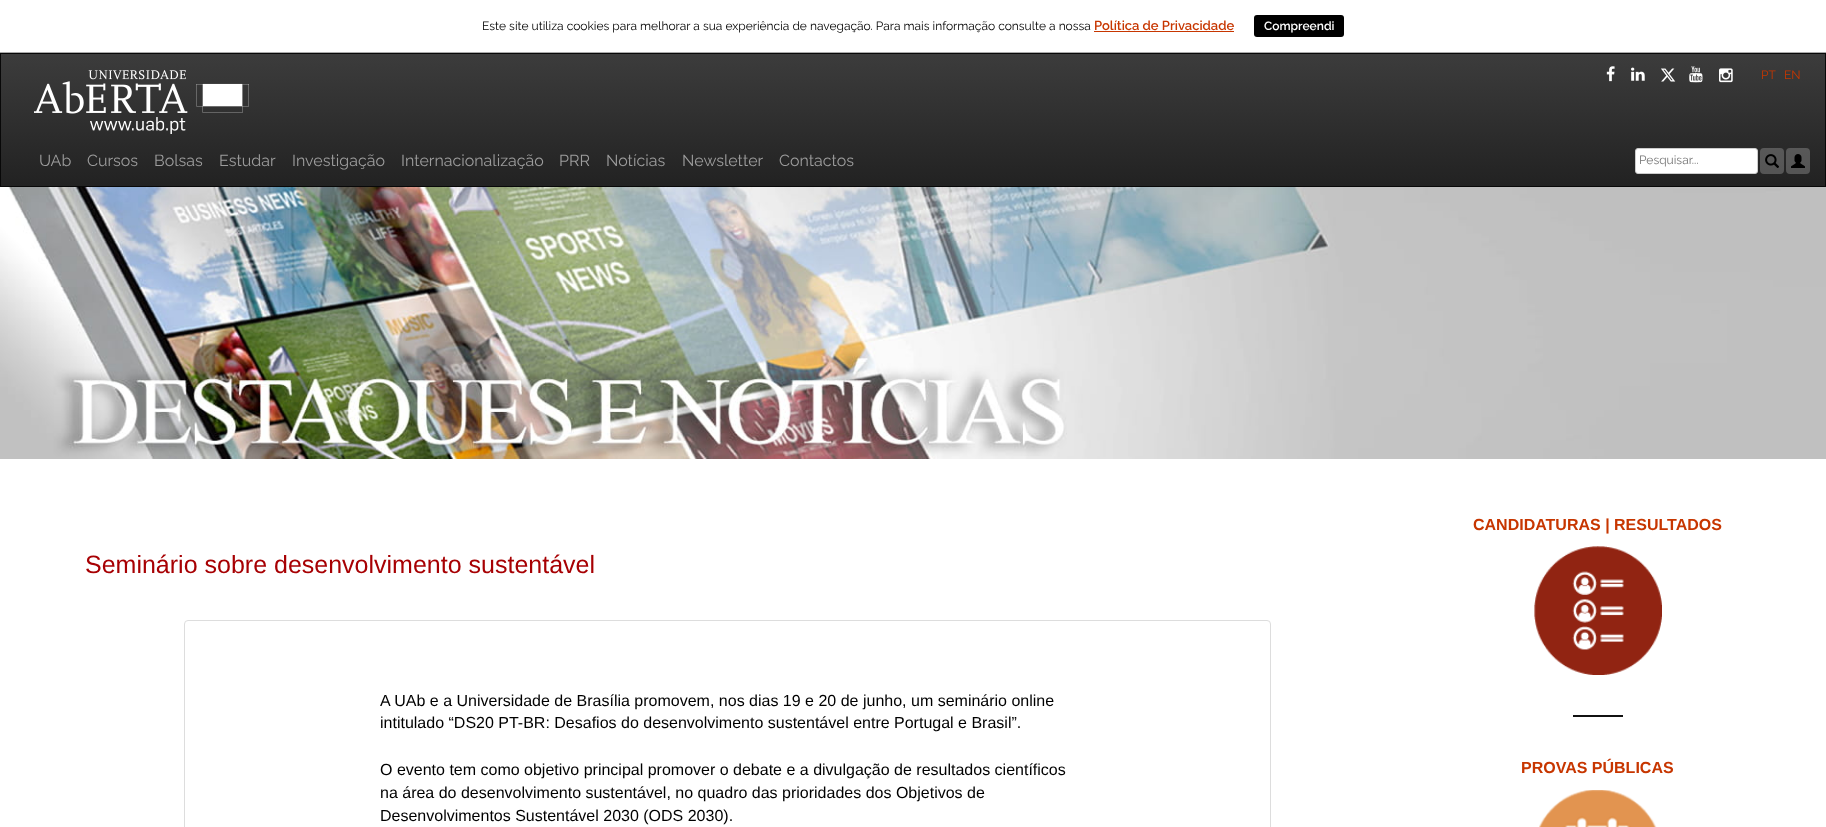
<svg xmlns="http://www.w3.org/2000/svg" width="1826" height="827">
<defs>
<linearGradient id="g1" gradientUnits="userSpaceOnUse" x1="913" y1="54" x2="913" y2="186"><stop offset="0" stop-color="#3c3c3c"/><stop offset="1" stop-color="#222"/></linearGradient>
</defs>
<rect width="100%" height="100%" fill="#fff"/>
<rect y="52" width="1826" height="1" fill="#aaa"/>
<text x="482" y="30" style="font-family:Raleway;font-size:12px;fill:#000">Este site utiliza cookies para melhorar a sua experiência de navegação. Para mais informação consulte a nossa</text>
<text x="1094" y="30" style="font-family:Raleway;font-size:13px;font-weight:600;fill:#c73600">Política de Privacidade</text>
<rect x="1094" y="31" width="140" height="1" fill="#c73600"/>
<rect x="1254" y="15" width="90" height="22" rx="3" fill="#000"/>
<text x="1264" y="30" style="font-family:Raleway;font-size:12px;font-weight:600;fill:#fff">Compreendi</text>
<rect x="1" y="54" width="1824" height="132" fill="url(#g1)"/>
<rect x="0.5" y="53.5" width="1825" height="133" fill="none" stroke="#080808"/>
<image x="34" y="70" width="215" height="64" href="media/1.png"/>
<image x="1606" y="66" width="9" height="16" href="media/2.png"/>
<image x="1631" y="67" width="14" height="14" href="media/3.png"/>
<image x="1661" y="68" width="15" height="14" href="media/4.png"/>
<image x="1689" y="66" width="14" height="17" href="media/5.png"/>
<image x="1719" y="68" width="14" height="15" href="media/6.png"/>
<text x="1761" y="79" style="font-family:Raleway;font-size:12px;fill:#c73600">PT</text>
<text x="1784" y="79" style="font-family:Raleway;font-size:12px;fill:#c73600">EN</text>
<text x="39" y="166" style="font-family:Raleway;font-size:16px;fill:#9d9d9d">UAb</text>
<text x="87" y="166" style="font-family:Raleway;font-size:16px;fill:#9d9d9d">Cursos</text>
<text x="154" y="166" style="font-family:Raleway;font-size:16px;fill:#9d9d9d">Bolsas</text>
<text x="219" y="166" style="font-family:Raleway;font-size:16px;fill:#9d9d9d">Estudar</text>
<text x="292" y="166" style="font-family:Raleway;font-size:16px;fill:#9d9d9d">Investigação</text>
<text x="401" y="166" style="font-family:Raleway;font-size:16px;fill:#9d9d9d">Internacionalização</text>
<text x="559" y="166" style="font-family:Raleway;font-size:16px;fill:#9d9d9d">PRR</text>
<text x="606" y="166" style="font-family:Raleway;font-size:16px;fill:#9d9d9d">Notícias</text>
<text x="682" y="166" style="font-family:Raleway;font-size:16px;fill:#9d9d9d">Newsletter</text>
<text x="779" y="166" style="font-family:Raleway;font-size:16px;fill:#9d9d9d">Contactos</text>
<rect x="1635.5" y="148.5" width="122" height="25" rx="2.5" fill="#fff" stroke="#ccc"/>
<text x="1639" y="164" style="font-family:Raleway;font-size:12px;fill:#757575">Pesquisar...</text>
<rect x="1760" y="148" width="24" height="26" rx="4" fill="#c8c8c84d"/>
<image x="1765" y="154" width="14" height="14" href="media/7.png"/>
<rect x="1786" y="148" width="24" height="26" rx="4" fill="#c8c8c84d"/>
<image x="1791" y="154" width="14" height="14" href="media/8.png"/>
<image x="0" y="187" width="1826" height="272" href="media/9.png"/>
<text x="85" y="573" style="font-family:Liberation Sans;font-size:25px;fill:#a70003">Seminário sobre desenvolvimento sustentável</text>
<rect x="184.5" y="620.5" width="1086" height="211" rx="3.5" fill="none" stroke="#ddd"/>
<text x="380" y="706" style="font-family:Liberation Sans;font-size:16px;fill:#000">A UAb e a Universidade de Brasília promovem, nos dias 19 e 20 de junho, um seminário online</text>
<text x="380" y="728" style="font-family:Liberation Sans;font-size:16px;fill:#000">intitulado “DS20 PT-BR: Desafios do desenvolvimento sustentável entre Portugal e Brasil”.</text>
<text x="380" y="775" style="font-family:Liberation Sans;font-size:16px;fill:#000">O evento tem como objetivo principal promover o debate e a divulgação de resultados científicos</text>
<text x="380" y="798" style="font-family:Liberation Sans;font-size:16px;fill:#000">na área do desenvolvimento sustentável, no quadro das prioridades dos Objetivos de</text>
<text x="380" y="821" style="font-family:Liberation Sans;font-size:16px;fill:#000">Desenvolvimentos Sustentável 2030 (ODS 2030).</text>
<text x="1473" y="530" style="font-family:Liberation Sans;font-size:16px;font-weight:bold;fill:#c73600">CANDIDATURAS | RESULTADOS</text>
<image x="1534" y="546" width="128" height="129" href="media/10.png"/>
<rect x="1573" y="715" width="50" height="2" fill="#111"/>
<text x="1521" y="773" style="font-family:Liberation Sans;font-size:16px;font-weight:bold;fill:#c73600">PROVAS PÚBLICAS</text>
<image x="1539" y="790" width="118" height="37" href="media/11.png"/>
</svg>
